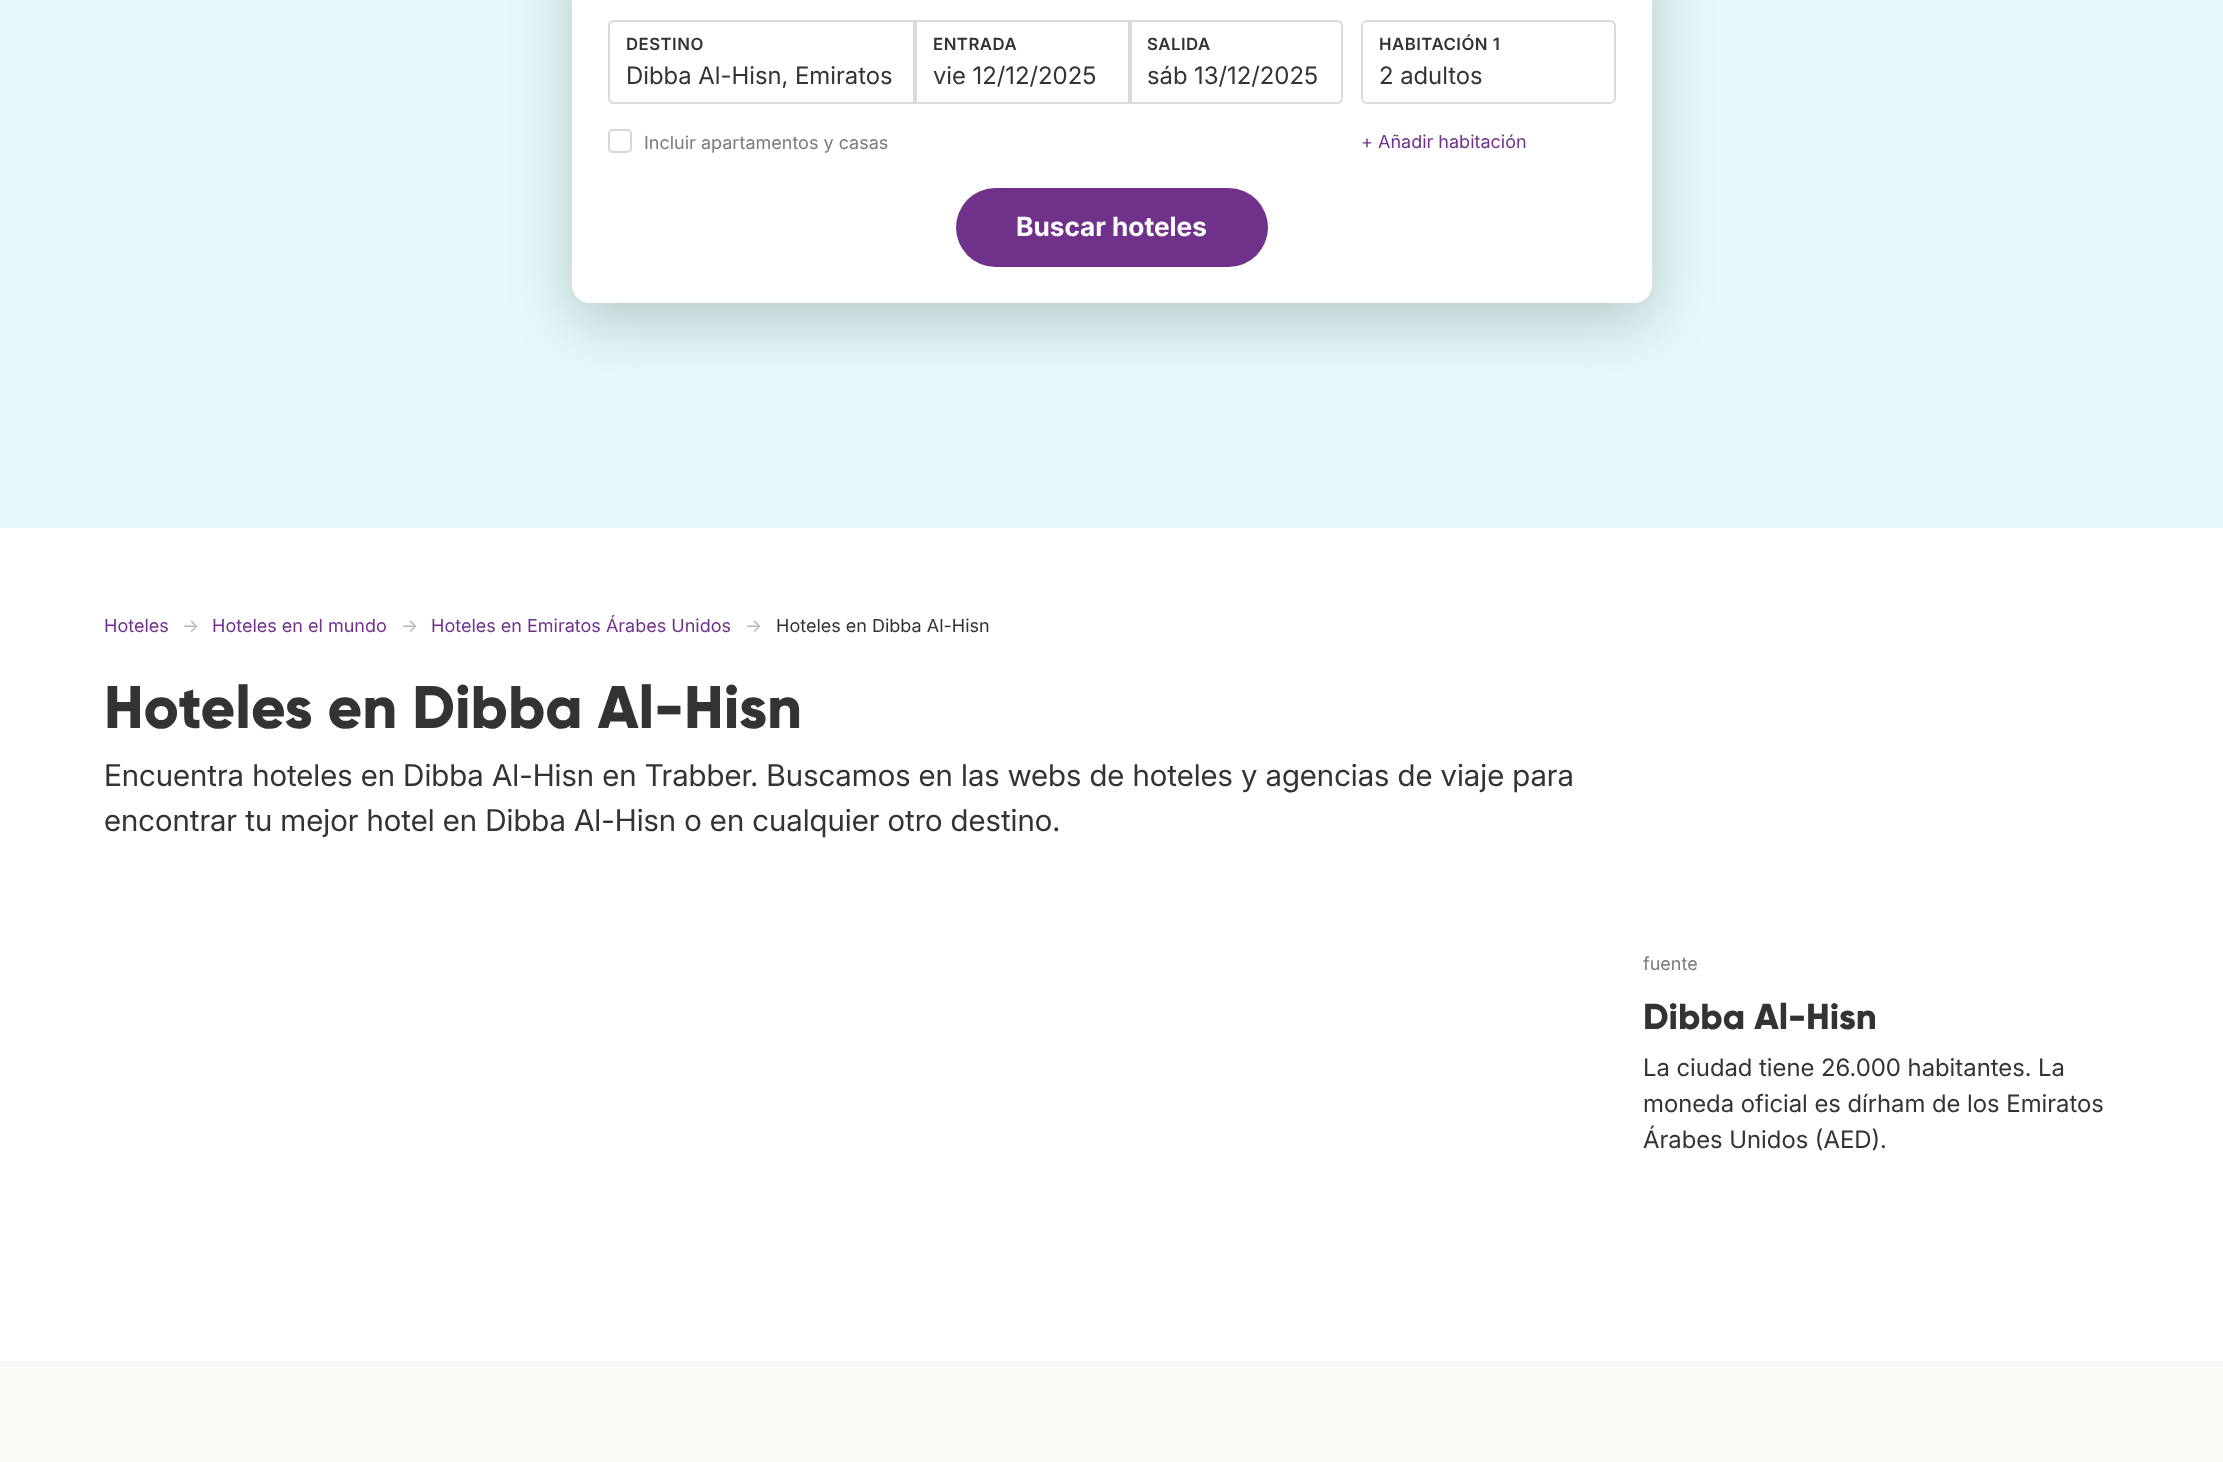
<svg xmlns="http://www.w3.org/2000/svg" width="2223" height="1462">
<rect width="100%" height="100%" fill="#fff"/>
<rect width="2223" height="528" fill="#e5f9fa"/>
<rect x="572" y="-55" width="1080" height="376" rx="18" fill="#00000033" filter="blur(30px)"/>
<rect x="572" y="-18" width="1080" height="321" rx="18" fill="#fff"/>
<path d="M614 21h300v82h-300c-3 0-5-2-5-5v-72c0-3 2-5 5-5z" fill="none" stroke="#dbdbdb" stroke-width="2"/>
<text x="626" y="50" style="font-family:Inter;font-size:16.75px;font-weight:600;letter-spacing:0.5px;fill:#333">DESTINO</text>
<text x="626" y="84" style="font-family:'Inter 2';font-size:24px;fill:#333">Dibba Al-Hisn, Emiratos</text>
<rect x="609" y="130" width="22" height="22" rx="4" fill="none" stroke="#d6d6d6" stroke-width="2"/>
<text x="644" y="149" style="font-family:Inter;font-size:18px;fill:#7a7a7a">Incluir apartamentos y casas</text>
<rect x="916" y="21" width="213" height="82" fill="none" stroke="#dbdbdb" stroke-width="2"/>
<text x="933" y="50" style="font-family:Inter;font-size:16.75px;font-weight:600;letter-spacing:0.5px;fill:#333">ENTRADA</text>
<text x="933" y="84" style="font-family:'Inter 2';font-size:24px;fill:#333">vie 12/12/2025</text>
<path d="M1131 21h206c3 0 5 2 5 5v72c0 3-2 5-5 5h-206z" fill="none" stroke="#dbdbdb" stroke-width="2"/>
<text x="1147" y="50" style="font-family:Inter;font-size:16.75px;font-weight:600;letter-spacing:0.5px;fill:#333">SALIDA</text>
<text x="1147" y="84" style="font-family:'Inter 2';font-size:24px;fill:#333">sáb 13/12/2025</text>
<rect x="1362" y="21" width="253" height="82" rx="5" fill="none" stroke="#dbdbdb" stroke-width="2"/>
<text x="1379" y="50" style="font-family:Inter;font-size:16.75px;font-weight:600;letter-spacing:0.5px;fill:#333">HABITACIÓN 1</text>
<text x="1379" y="84" style="font-family:'Inter 2';font-size:24px;fill:#333">2 adultos</text>
<text x="1361" y="148" style="font-family:Inter;font-size:18px;fill:#70318b">+ Añadir habitación</text>
<rect x="956" y="188" width="312" height="79" rx="39.5" fill="#70318b"/>
<text x="1016" y="236" style="font-family:Inter;font-size:26.5px;font-weight:bold;fill:#fff">Buscar hoteles</text>
<text x="104" y="632" style="font-family:Inter;font-size:18px;fill:#70318b">Hoteles</text>
<text x="182" y="632" style="font-family:Inter;font-size:18px;fill:#b5b5b5">→</text>
<text x="212" y="632" style="font-family:Inter;font-size:18px;fill:#70318b">Hoteles en el mundo</text>
<text x="401" y="632" style="font-family:Inter;font-size:18px;fill:#b5b5b5">→</text>
<text x="431" y="632" style="font-family:Inter;font-size:18px;fill:#70318b">Hoteles en Emiratos Árabes Unidos</text>
<text x="745" y="632" style="font-family:Inter;font-size:18px;fill:#b5b5b5">→</text>
<text x="776" y="632" style="font-family:Inter;font-size:18px;fill:#333">Hoteles en Dibba Al-Hisn</text>
<text x="104" y="728" style="font-family:Gilroy;font-size:60px;font-weight:800;fill:#333">Hoteles en Dibba Al-Hisn</text>
<text x="104" y="786" style="font-family:'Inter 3';font-size:30px;fill:#333">Encuentra hoteles en Dibba Al-Hisn en Trabber. Buscamos en las webs de hoteles y agencias de viaje para</text>
<text x="104" y="831" style="font-family:'Inter 3';font-size:30px;fill:#333">encontrar tu mejor hotel en Dibba Al-Hisn o en cualquier otro destino.</text>
<text x="1643" y="970" style="font-family:Inter;font-size:18px;fill:#7a7a7a">fuente</text>
<text x="1643" y="1029" style="font-family:Gilroy;font-size:36px;font-weight:800;fill:#333">Dibba Al-Hisn</text>
<text x="1643" y="1076" style="font-family:'Inter 2';font-size:24px;fill:#333">La ciudad tiene 26.000 habitantes. La</text>
<text x="1643" y="1112" style="font-family:'Inter 2';font-size:24px;fill:#333">moneda oficial es dírham de los Emiratos</text>
<text x="1643" y="1148" style="font-family:'Inter 2';font-size:24px;fill:#333">Árabes Unidos (AED).</text>
<rect y="1361" width="2223" height="101" fill="#faf9f5"/>
</svg>
